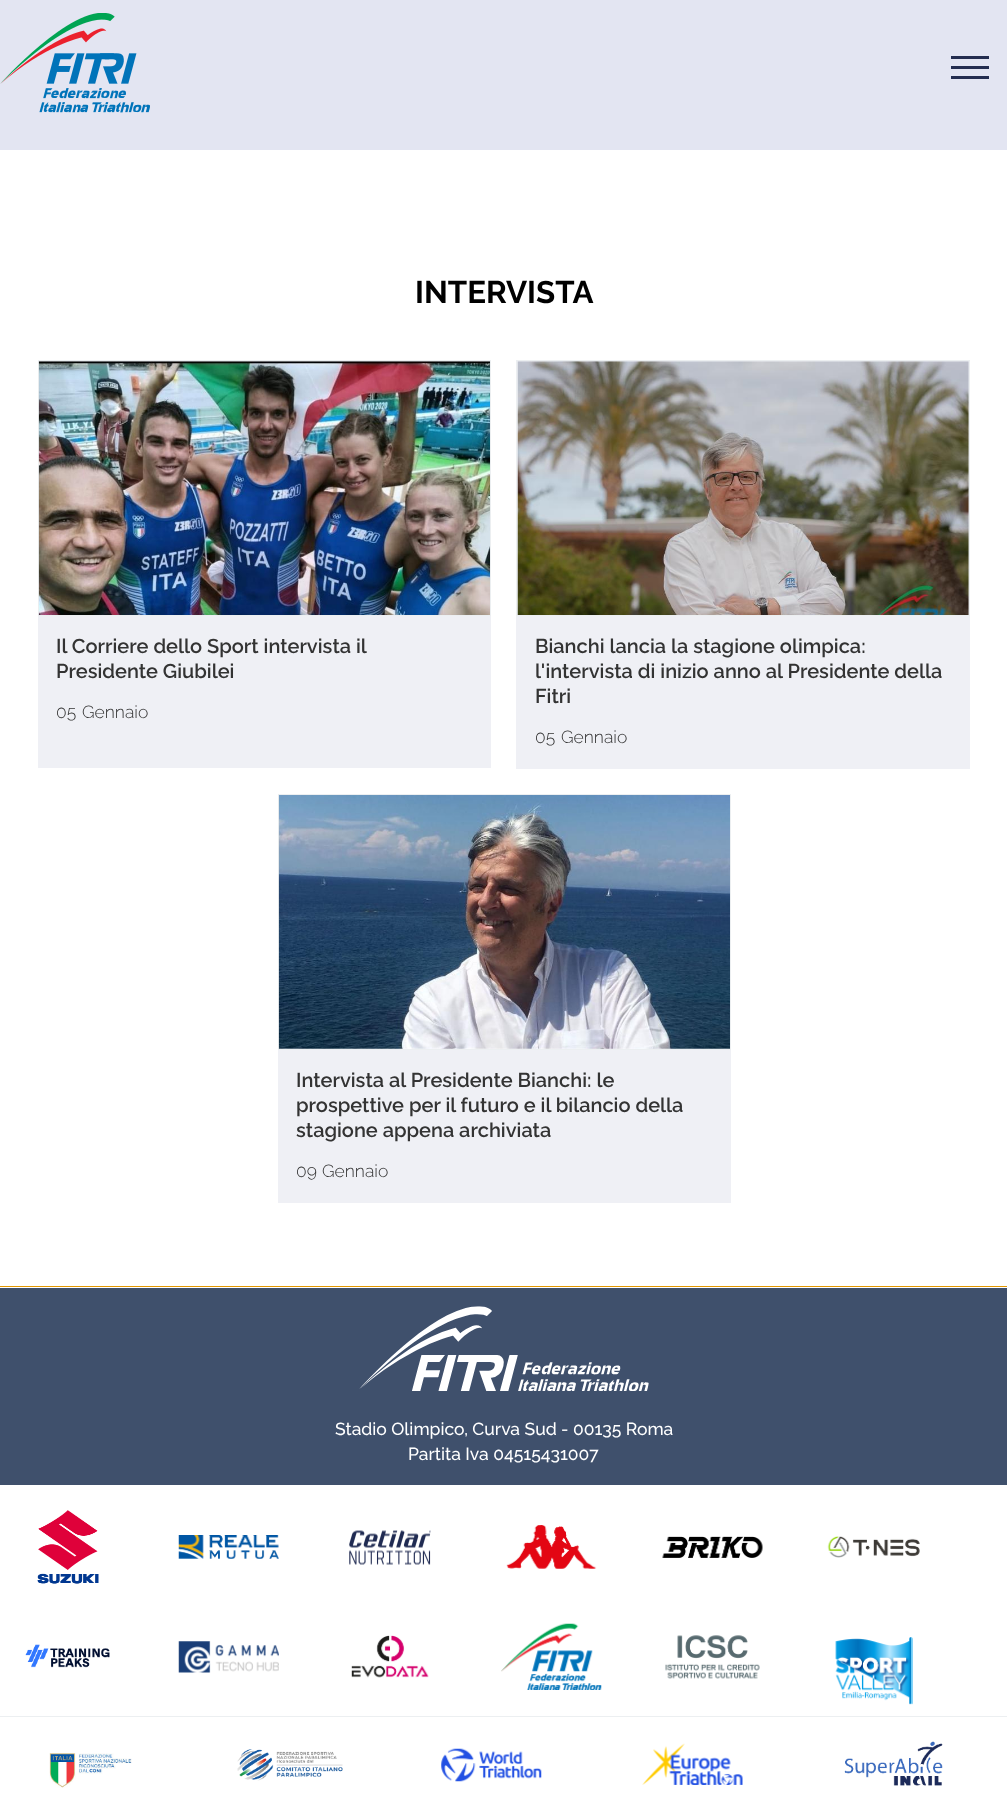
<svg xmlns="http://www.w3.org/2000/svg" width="1007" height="1806">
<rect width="100%" height="100%" fill="#fff"/>
<rect width="1007" height="150" fill="#e3e5f2"/>
<image x="0" y="13" width="150" height="100" href="media/1.png"/>
<rect x="951" y="56" width="38" height="3" fill="#242d50"/>
<rect x="951" y="66" width="38" height="3" fill="#242d50"/>
<rect x="951" y="76" width="38" height="3" fill="#242d50"/>
<text x="415" y="303" style="font-family:Raleway;font-size:31.25px;font-weight:bold;fill:#000">INTERVISTA</text>
<rect x="38" y="361" width="453" height="407" fill="#eff0f5"/>
<rect x="38.5" y="360.5" width="452" height="255" fill="none" stroke="#eceff1"/>
<image x="38" y="361" width="452" height="254" href="media/2.png"/>
<text x="56" y="653" style="font-family:Raleway;font-size:20px;font-weight:600;fill:#333">Il Corriere dello Sport intervista il</text>
<text x="56" y="678" style="font-family:Raleway;font-size:20px;font-weight:600;fill:#333">Presidente Giubilei</text>
<text x="56" y="718" style="font-family:Raleway;font-size:17.5px;font-weight:300;fill:#333">05</text>
<text x="82" y="718" style="font-family:Raleway;font-size:17.5px;font-weight:300;fill:#333">Gennaio</text>
<rect x="516.5" y="360.5" width="453" height="255" fill="#eff0f5" stroke="#eceff1"/>
<image x="517" y="361" width="452" height="254" href="media/3.png"/>
<rect x="516" y="616" width="454" height="153" fill="#eff0f5"/>
<text x="535" y="653" style="font-family:Raleway;font-size:20px;font-weight:600;fill:#333">Bianchi lancia la stagione olimpica:</text>
<text x="535" y="678" style="font-family:Raleway;font-size:20px;font-weight:600;fill:#333">l'intervista di inizio anno al Presidente della</text>
<text x="535" y="703" style="font-family:Raleway;font-size:20px;font-weight:600;fill:#333">Fitri</text>
<text x="535" y="743" style="font-family:Raleway;font-size:17.5px;font-weight:300;fill:#333">05</text>
<text x="561" y="743" style="font-family:Raleway;font-size:17.5px;font-weight:300;fill:#333">Gennaio</text>
<rect x="278.5" y="794.5" width="452" height="255" fill="none" stroke="#eceff1"/>
<image x="278" y="795" width="452" height="254" href="media/4.png"/>
<rect x="278" y="1050" width="453" height="153" fill="#eff0f5"/>
<text x="296" y="1087" style="font-family:Raleway;font-size:20px;font-weight:600;fill:#333">Intervista al Presidente Bianchi: le</text>
<text x="296" y="1112" style="font-family:Raleway;font-size:20px;font-weight:600;fill:#333">prospettive per il futuro e il bilancio della</text>
<text x="296" y="1137" style="font-family:Raleway;font-size:20px;font-weight:600;fill:#333">stagione appena archiviata</text>
<text x="296" y="1177" style="font-family:Raleway;font-size:17.5px;font-weight:300;fill:#333">09</text>
<text x="322" y="1177" style="font-family:Raleway;font-size:17.5px;font-weight:300;fill:#333">Gennaio</text>
<rect y="1286" width="1007" height="1" fill="#e29700"/>
<rect y="1288" width="1007" height="197" fill="#3f506c"/>
<image x="359" y="1306" width="290" height="85" href="media/5.png"/>
<text x="335" y="1435" style="font-family:Raleway;font-size:17.5px;font-weight:500;fill:#fff">Stadio Olimpico, Curva Sud - 00135 Roma</text>
<text x="408" y="1460" style="font-family:Raleway;font-size:17.5px;font-weight:500;fill:#fff">Partita Iva 04515431007</text>
<image x="37" y="1510" width="62" height="74" href="media/6.png"/>
<image x="178" y="1535" width="101" height="24" href="media/7.png"/>
<image x="349" y="1530" width="82" height="35" href="media/8.png"/>
<image x="506" y="1525" width="91" height="44" href="media/9.png"/>
<image x="662" y="1536" width="101" height="22" href="media/10.png"/>
<image x="827" y="1536" width="93" height="22" href="media/11.png"/>
<image x="25" y="1644" width="85" height="24" href="media/12.png"/>
<image x="178" y="1641" width="101" height="32" href="media/13.png"/>
<image x="351" y="1635" width="78" height="43" href="media/14.png"/>
<image x="501" y="1623" width="101" height="67" href="media/15.png"/>
<image x="665" y="1635" width="95" height="44" href="media/16.png"/>
<image x="835" y="1637" width="78" height="68" href="media/17.png"/>
<rect y="1716" width="1007" height="1" fill="#eceff1"/>
<image x="49" y="1753" width="83" height="35" href="media/18.png"/>
<image x="237" y="1749" width="106" height="32" href="media/19.png"/>
<image x="441" y="1748" width="101" height="34" href="media/20.png"/>
<image x="642" y="1743" width="101" height="42" href="media/21.png"/>
<image x="844" y="1741" width="99" height="45" href="media/22.png"/>
</svg>
